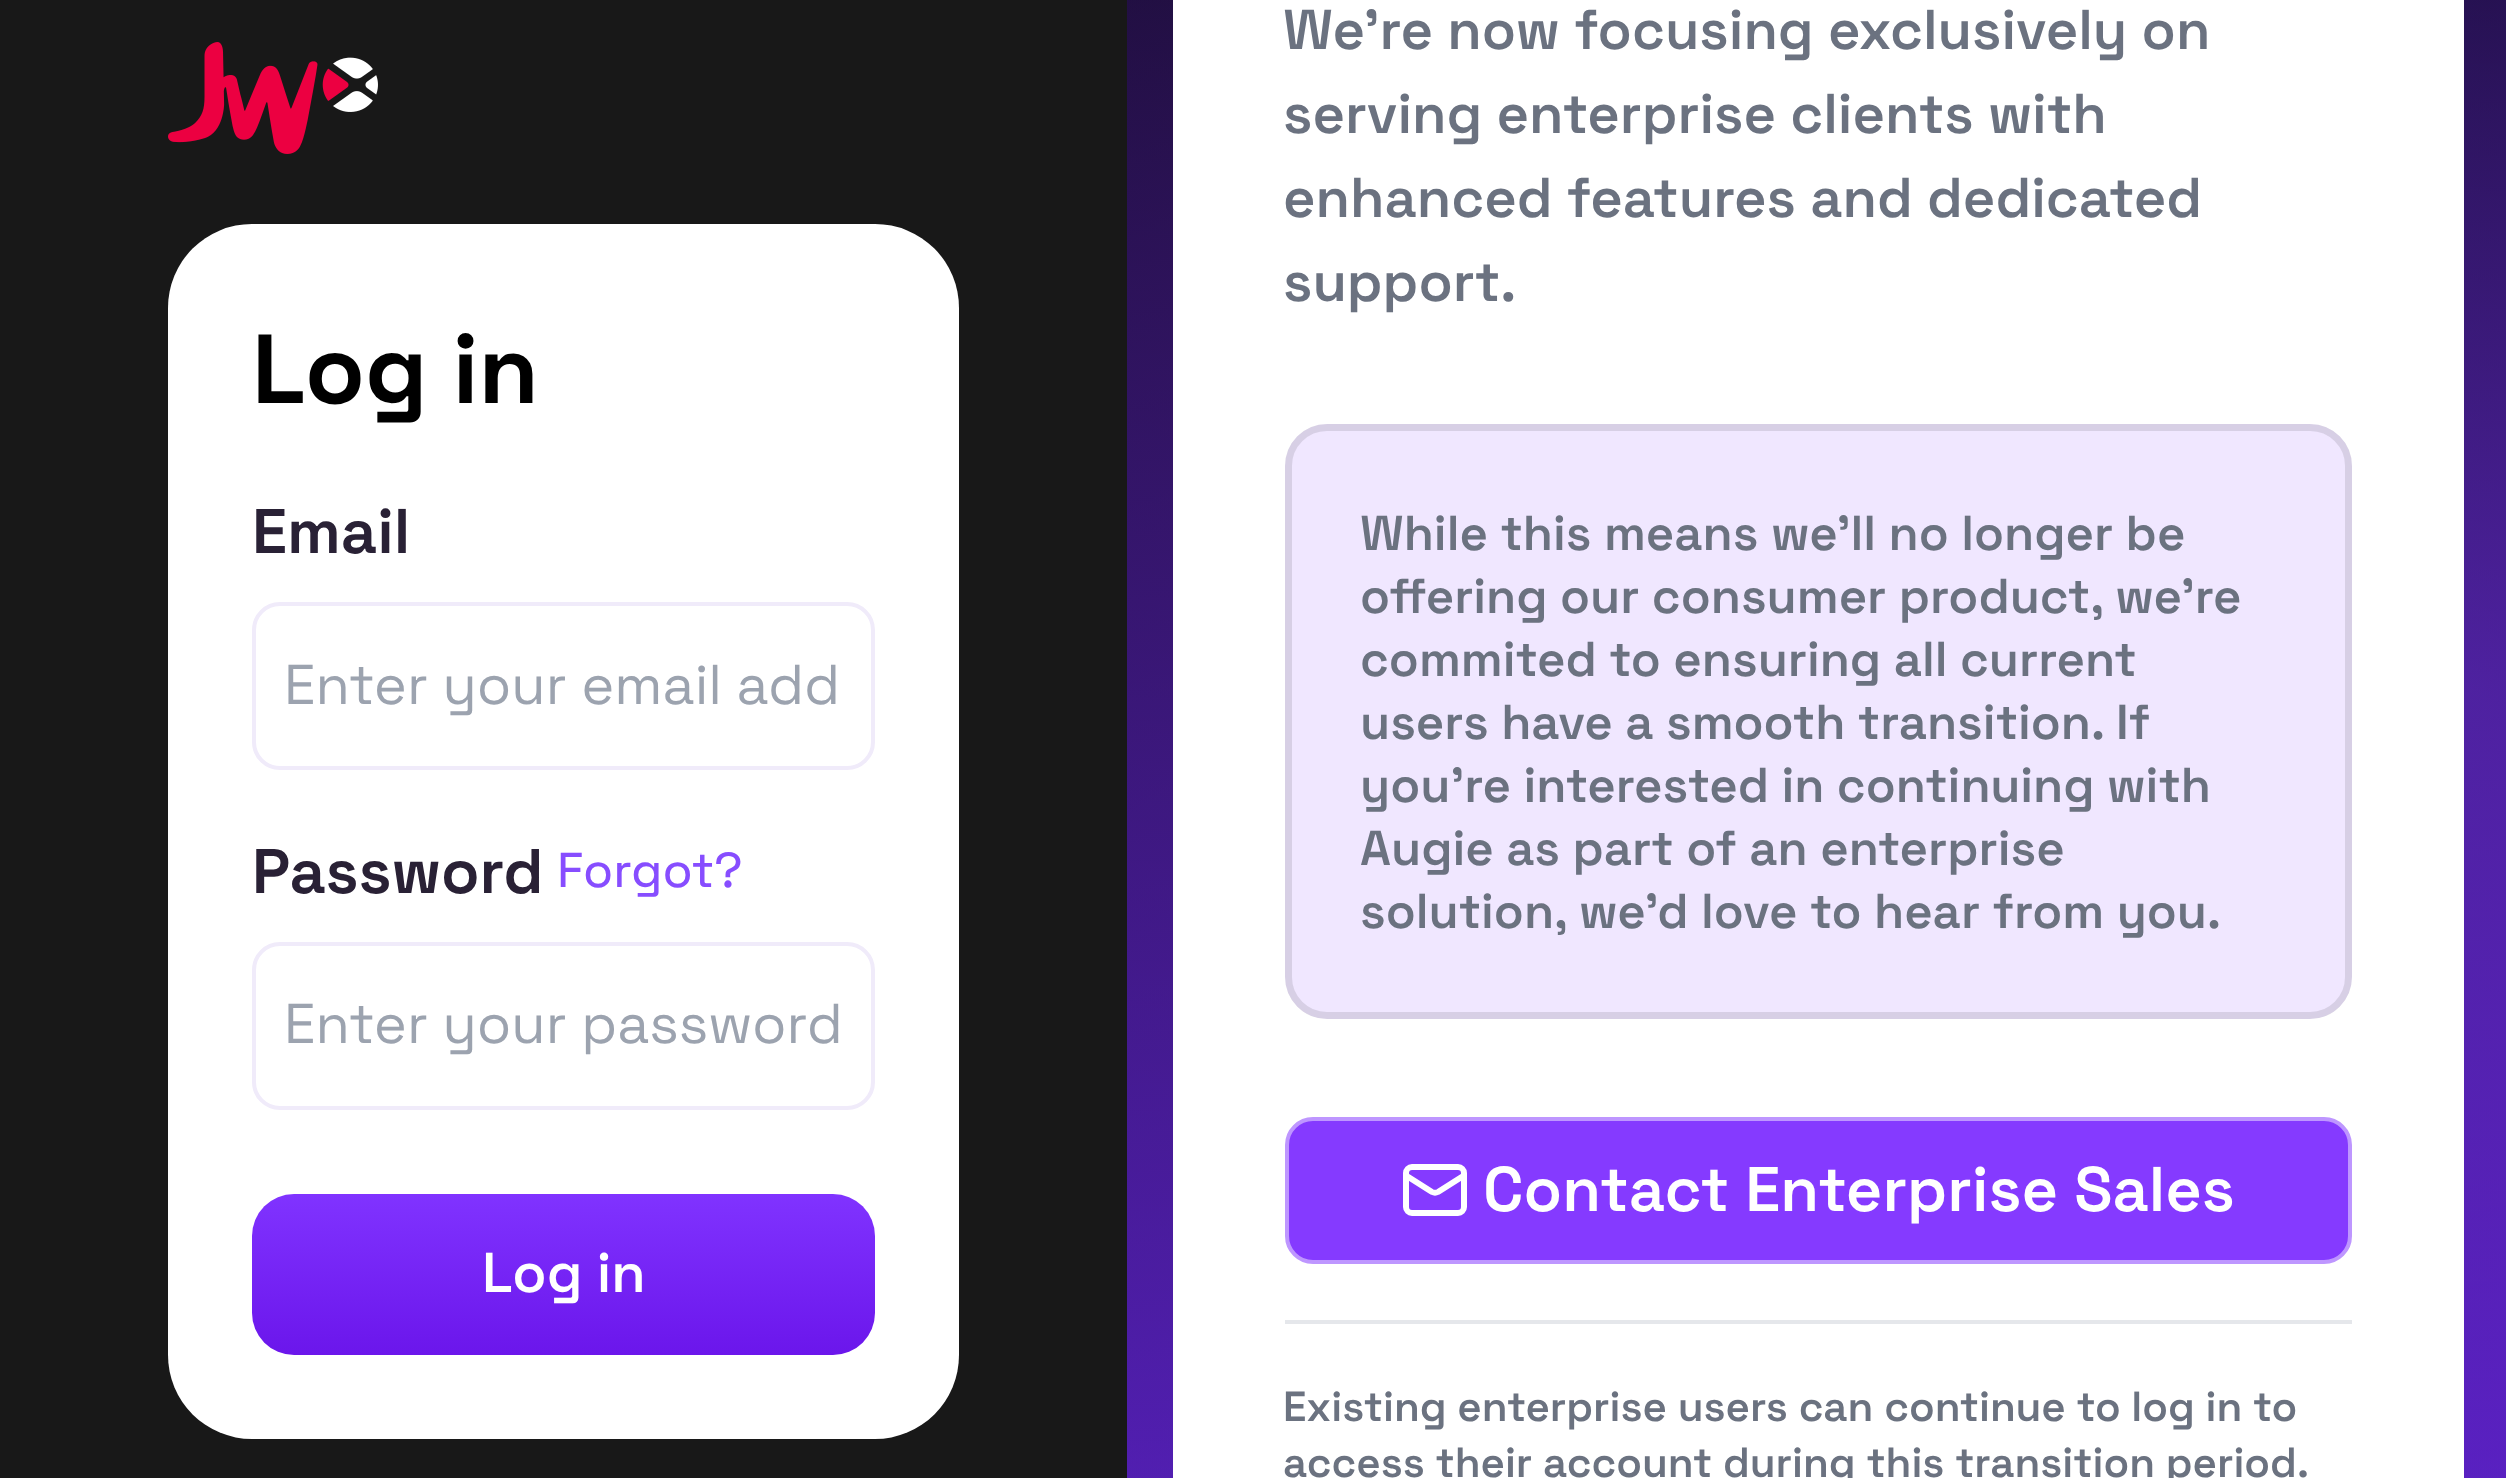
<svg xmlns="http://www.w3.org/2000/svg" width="2506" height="1478">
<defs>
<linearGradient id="g1" gradientUnits="userSpaceOnUse" x1="564" y1="1194" x2="564" y2="1355"><stop offset="0" stop-color="#8033ff"/><stop offset="1" stop-color="#6b16eb"/></linearGradient>
<radialGradient id="g2" gradientUnits="userSpaceOnUse" cx="0" cy="0" r="1" gradientTransform="matrix(1690 0 0 1938 1437 1399)"><stop offset="0" stop-color="#f6f0ff"/><stop offset="1" stop-color="#d195fc"/></radialGradient>
<radialGradient id="g3" gradientUnits="userSpaceOnUse" cx="0" cy="0" r="1" gradientTransform="matrix(747 0 0 939 2471 688)"><stop offset="0" stop-color="#7b2ff7" stop-opacity="0.58"/><stop offset="1" stop-color="#000" stop-opacity="0.8"/></radialGradient>
<radialGradient id="g4" gradientUnits="userSpaceOnUse" cx="0" cy="0" r="1" gradientTransform="matrix(959 0 0 1192 1401 248)"><stop offset="0" stop-color="#7b2ff7" stop-opacity="0.4"/><stop offset="1" stop-color="#321db8" stop-opacity="0.4"/></radialGradient>
<linearGradient id="g5" gradientUnits="userSpaceOnUse" x1="1713" y1="-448" x2="1970" y2="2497"><stop offset="0" stop-color="#000" stop-opacity="0.7"/><stop offset="0.71" stop-color="#6b1ee9" stop-opacity="0.7"/><stop offset="0.88" stop-color="#5018df" stop-opacity="0.7"/><stop offset="1" stop-color="#21005a" stop-opacity="0.7"/></linearGradient>
</defs>
<rect width="100%" height="100%" fill="#fff"/>
<rect width="1127" height="1478" fill="#181818"/>
<image x="168" y="42" width="210" height="112" href="media/1.png"/>
<rect x="168" y="224" width="791" height="1215" rx="84" fill="#fff"/>
<text x="252" y="403" style="font-family:Space Grotesk;font-size:98px;font-weight:bold;fill:#000">Log in</text>
<text x="252" y="553" style="font-family:'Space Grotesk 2';font-size:63px;font-weight:600;fill:#292135">Email</text>
<rect x="254" y="604" width="619" height="164" rx="26" fill="none" stroke="#f0ebfa" stroke-width="4"/>
<text x="284" y="704" style="font-family:'Space Grotesk 2';font-size:56px;fill:#9ca3af">Enter your email add</text>
<text x="252" y="893" style="font-family:'Space Grotesk 2';font-size:63px;font-weight:600;fill:#292135">Password</text>
<text x="557" y="887" style="font-family:Space Grotesk;font-size:49px;fill:#874dff">Forgot?</text>
<rect x="254" y="944" width="619" height="164" rx="26" fill="none" stroke="#f0ebfa" stroke-width="4"/>
<text x="284" y="1043" style="font-family:'Space Grotesk 2';font-size:56px;fill:#9ca3af">Enter your password</text>
<rect x="252" y="1194" width="623" height="161" rx="42" fill="url(#g1)"/>
<text x="482" y="1292" style="font-family:'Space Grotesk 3';font-size:56px;font-weight:600;fill:#fff">Log in</text>
<rect x="1127" width="1379" height="1478" fill="url(#g2)"/>
<rect x="1127" width="1379" height="1478" fill="url(#g3)"/>
<rect x="1127" width="1379" height="1478" fill="url(#g4)"/>
<rect x="1127" width="1379" height="1478" fill="url(#g5)"/>
<rect x="1173" width="1291" height="1478" fill="#fff"/>
<text x="1283" y="49" style="font-family:Space Grotesk;font-size:56px;font-weight:600;fill:#6b7280">We’re now focusing exclusively on</text>
<text x="1283" y="133" style="font-family:Space Grotesk;font-size:56px;font-weight:600;fill:#6b7280">serving enterprise clients with</text>
<text x="1283" y="217" style="font-family:Space Grotesk;font-size:56px;font-weight:600;fill:#6b7280">enhanced features and dedicated</text>
<text x="1283" y="301" style="font-family:Space Grotesk;font-size:56px;font-weight:600;fill:#6b7280">support.</text>
<rect x="1285" y="424" width="1067" height="595" rx="42" fill="#f0e7ff"/>
<rect x="1288.5" y="427.5" width="1060" height="588" rx="38.5" fill="none" stroke="#0000001a" stroke-width="7"/>
<text x="1360" y="550" style="font-family:Space Grotesk;font-size:49px;font-weight:600;fill:#6b7280">While this means we'll no longer be</text>
<text x="1360" y="613" style="font-family:Space Grotesk;font-size:49px;font-weight:600;fill:#6b7280">offering our consumer product, we're</text>
<text x="1360" y="676" style="font-family:Space Grotesk;font-size:49px;font-weight:600;fill:#6b7280">commited to ensuring all current</text>
<text x="1360" y="739" style="font-family:Space Grotesk;font-size:49px;font-weight:600;fill:#6b7280">users have a smooth transition. If</text>
<text x="1360" y="802" style="font-family:Space Grotesk;font-size:49px;font-weight:600;fill:#6b7280">you're interested in continuing with</text>
<text x="1360" y="865" style="font-family:Space Grotesk;font-size:49px;font-weight:600;fill:#6b7280">Augie as part of an enterprise</text>
<text x="1360" y="928" style="font-family:Space Grotesk;font-size:49px;font-weight:600;fill:#6b7280">solution, we'd love to hear from you.</text>
<rect x="1287" y="1119" width="1063" height="143" rx="26" fill="#853aff" stroke="#be96ff" stroke-width="4"/>
<rect x="1406" y="1167" width="58" height="46" rx="6" fill="none" stroke="#fff" stroke-width="6"/>
<path d="M1464 1175.5l-26 16.5c-2 1-4 1-6 0l-26-16.5" fill="none" stroke="#fff" stroke-width="5.8" stroke-linecap="round" stroke-linejoin="round"/>
<text x="1483" y="1211" style="font-family:Space Grotesk;font-size:63px;font-weight:600;fill:#fff">Contact Enterprise Sales</text>
<rect x="1285" y="1320" width="1067" height="4" fill="#e5e7eb"/>
<text x="1283" y="1421" style="font-family:Space Grotesk;font-size:42px;font-weight:600;fill:#6b7280">Existing enterprise users can continue to log in to</text>
<text x="1283" y="1477" style="font-family:Space Grotesk;font-size:42px;font-weight:600;fill:#6b7280">access their account during this transition period.</text>
</svg>
